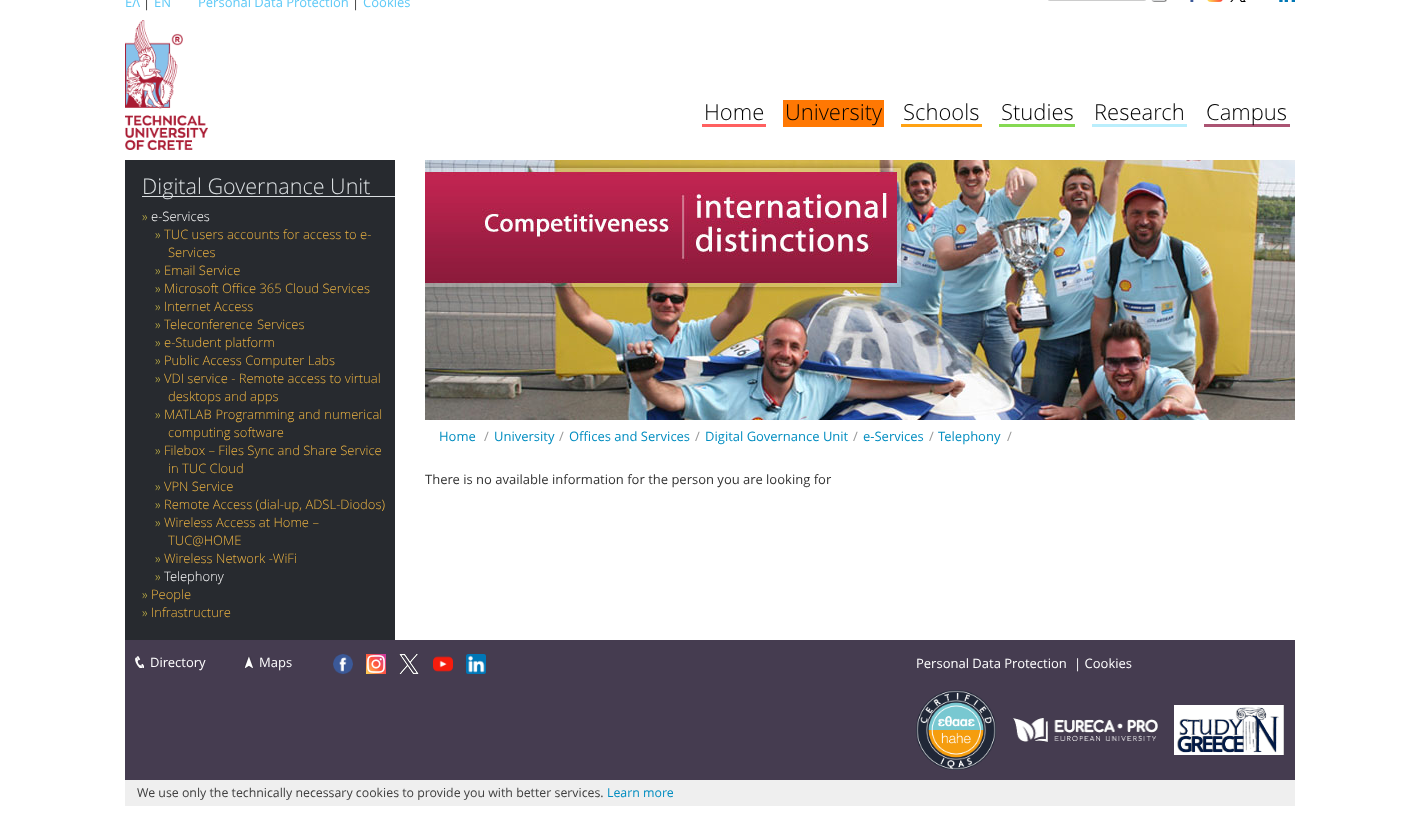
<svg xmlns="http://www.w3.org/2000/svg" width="1419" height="817">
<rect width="100%" height="100%" fill="#fff"/>
<rect x="1047.5" y="-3.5" width="99" height="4" rx="2.5" fill="none" stroke="#ccc"/>
<image x="1151" y="0" width="16" height="2" href="media/1.png"/>
<image x="1190" y="0" width="4" height="2" href="media/2.png"/>
<image x="1207" y="0" width="16" height="2" href="media/3.png"/>
<image x="1230" y="0" width="16" height="2" href="media/4.png"/>
<image x="1279" y="0" width="16" height="2" href="media/5.png"/>
<text x="125" y="7" style="font-family:Open Sans;font-size:13px;fill:#5ec9f7">ΕΛ</text>
<text x="143" y="7" style="font-family:Open Sans;font-size:13px;fill:#333">|</text>
<text x="154" y="7" style="font-family:Open Sans;font-size:13px;fill:#5ec9f7">EN</text>
<text x="198" y="7" style="font-family:Open Sans;font-size:13px;fill:#5ec9f7">Personal Data Protection</text>
<text x="352" y="7" style="font-family:Open Sans;font-size:13px;fill:#333">|</text>
<text x="363" y="7" style="font-family:Open Sans;font-size:13px;fill:#5ec9f7">Cookies</text>
<image x="125" y="20" width="83" height="130" href="media/6.png"/>
<rect x="702" y="124" width="64" height="3" fill="#ff6060"/>
<text x="704" y="120" style="font-family:Open Sans;font-size:22px;font-weight:300;fill:#000">Home</text>
<rect x="783" y="100" width="101" height="27" fill="#ff7803"/>
<text x="785" y="120" style="font-family:Open Sans;font-size:22px;font-weight:300;fill:#000">University</text>
<rect x="901" y="124" width="81" height="3" fill="#ffa213"/>
<text x="903" y="120" style="font-family:Open Sans;font-size:22px;font-weight:300;fill:#000">Schools</text>
<rect x="999" y="124" width="76" height="3" fill="#86d953"/>
<text x="1001" y="120" style="font-family:Open Sans;font-size:22px;font-weight:300;fill:#000">Studies</text>
<rect x="1092" y="124" width="95" height="3" fill="#baeefc"/>
<text x="1094" y="120" style="font-family:Open Sans;font-size:22px;font-weight:300;fill:#000">Research</text>
<rect x="1204" y="124" width="86" height="3" fill="#ab5473"/>
<text x="1206" y="120" style="font-family:Open Sans;font-size:22px;font-weight:300;fill:#000">Campus</text>
<rect x="125" y="160" width="270" height="480" fill="#272a2f"/>
<rect x="142" y="196" width="253" height="1" fill="#dbdfe2"/>
<text x="142" y="194" style="font-family:Open Sans;font-size:21.6px;font-weight:300;fill:#dbdfe2">Digital Governance Unit</text>
<text x="142" y="221" style="font-family:Open Sans;font-size:13px;font-weight:300;fill:#c7b547">»</text>
<text x="151" y="221" style="font-family:Open Sans;font-size:13px;font-weight:300;fill:#fff">e-Services</text>
<text x="155" y="239" style="font-family:Open Sans;font-size:13px;font-weight:300;fill:#c7b547">»</text>
<text x="164" y="239" style="font-family:Open Sans;font-size:13px;font-weight:300;fill:#edb442">TUC users accounts for access to e-</text>
<text x="168" y="257" style="font-family:Open Sans;font-size:13px;font-weight:300;fill:#edb442">Services</text>
<text x="155" y="275" style="font-family:Open Sans;font-size:13px;font-weight:300;fill:#c7b547">»</text>
<text x="164" y="275" style="font-family:Open Sans;font-size:13px;font-weight:300;fill:#edb442">Email Service</text>
<text x="155" y="293" style="font-family:Open Sans;font-size:13px;font-weight:300;fill:#c7b547">»</text>
<text x="164" y="293" style="font-family:Open Sans;font-size:13px;font-weight:300;fill:#edb442">Microsoft Office 365 Cloud Services</text>
<text x="155" y="311" style="font-family:Open Sans;font-size:13px;font-weight:300;fill:#c7b547">»</text>
<text x="164" y="311" style="font-family:Open Sans;font-size:13px;font-weight:300;fill:#edb442">Internet Access</text>
<text x="155" y="329" style="font-family:Open Sans;font-size:13px;font-weight:300;fill:#c7b547">»</text>
<text x="164" y="329" word-spacing="1" style="font-family:Open Sans;font-size:13px;font-weight:300;fill:#edb442">Teleconference Services</text>
<text x="155" y="347" style="font-family:Open Sans;font-size:13px;font-weight:300;fill:#c7b547">»</text>
<text x="164" y="347" style="font-family:Open Sans;font-size:13px;font-weight:300;fill:#edb442">e-Student platform</text>
<text x="155" y="365" style="font-family:Open Sans;font-size:13px;font-weight:300;fill:#c7b547">»</text>
<text x="164" y="365" style="font-family:Open Sans;font-size:13px;font-weight:300;fill:#edb442">Public Access Computer Labs</text>
<text x="155" y="383" style="font-family:Open Sans;font-size:13px;font-weight:300;fill:#c7b547">»</text>
<text x="164" y="383" style="font-family:Open Sans;font-size:13px;font-weight:300;fill:#edb442">VDI service - Remote access to virtual</text>
<text x="168" y="401" style="font-family:Open Sans;font-size:13px;font-weight:300;fill:#edb442">desktops and apps</text>
<text x="155" y="419" style="font-family:Open Sans;font-size:13px;font-weight:300;fill:#c7b547">»</text>
<text x="164" y="419" word-spacing="0.5" style="font-family:Open Sans;font-size:13px;font-weight:300;fill:#edb442">MATLAB Programming and numerical</text>
<text x="168" y="437" style="font-family:Open Sans;font-size:13px;font-weight:300;fill:#edb442">computing software</text>
<text x="155" y="455" style="font-family:Open Sans;font-size:13px;font-weight:300;fill:#c7b547">»</text>
<text x="164" y="455" style="font-family:Open Sans;font-size:13px;font-weight:300;fill:#edb442">Filebox – Files Sync and Share Service</text>
<text x="168" y="473" style="font-family:Open Sans;font-size:13px;font-weight:300;fill:#edb442">in TUC Cloud</text>
<text x="155" y="491" style="font-family:Open Sans;font-size:13px;font-weight:300;fill:#c7b547">»</text>
<text x="164" y="491" style="font-family:Open Sans;font-size:13px;font-weight:300;fill:#edb442">VPN Service</text>
<text x="155" y="509" style="font-family:Open Sans;font-size:13px;font-weight:300;fill:#c7b547">»</text>
<text x="164" y="509" style="font-family:Open Sans;font-size:13px;font-weight:300;fill:#edb442">Remote Access (dial-up, ADSL-Diodos)</text>
<text x="155" y="527" style="font-family:Open Sans;font-size:13px;font-weight:300;fill:#c7b547">»</text>
<text x="164" y="527" style="font-family:Open Sans;font-size:13px;font-weight:300;fill:#edb442">Wireless Access at Home –</text>
<text x="168" y="545" style="font-family:Open Sans;font-size:13px;font-weight:300;fill:#edb442">TUC@HOME</text>
<text x="155" y="563" style="font-family:Open Sans;font-size:13px;font-weight:300;fill:#c7b547">»</text>
<text x="164" y="563" style="font-family:Open Sans;font-size:13px;font-weight:300;fill:#edb442">Wireless Network -WiFi</text>
<text x="155" y="581" style="font-family:Open Sans;font-size:13px;font-weight:300;fill:#c7b547">»</text>
<text x="164" y="581" style="font-family:Open Sans;font-size:13px;font-weight:300;fill:#fff">Telephony</text>
<text x="142" y="599" style="font-family:Open Sans;font-size:13px;font-weight:300;fill:#c7b547">»</text>
<text x="151" y="599" style="font-family:Open Sans;font-size:13px;font-weight:300;fill:#edb442">People</text>
<text x="142" y="617" style="font-family:Open Sans;font-size:13px;font-weight:300;fill:#c7b547">»</text>
<text x="151" y="617" style="font-family:Open Sans;font-size:13px;font-weight:300;fill:#edb442">Infrastructure</text>
<image x="425" y="160" width="870" height="260" href="media/7.png"/>
<text x="439" y="441" style="font-family:Open Sans;font-size:13px;fill:#028dc0">Home</text>
<text x="484" y="441" style="font-family:Open Sans;font-size:13px;fill:#999">/</text>
<text x="494" y="441" style="font-family:Open Sans;font-size:13px;fill:#028dc0">University</text>
<text x="559" y="441" style="font-family:Open Sans;font-size:13px;fill:#999">/</text>
<text x="569" y="441" style="font-family:Open Sans;font-size:13px;fill:#028dc0">Offices and Services</text>
<text x="695" y="441" style="font-family:Open Sans;font-size:13px;fill:#999">/</text>
<text x="705" y="441" style="font-family:Open Sans;font-size:13px;fill:#028dc0">Digital Governance Unit</text>
<text x="853" y="441" style="font-family:Open Sans;font-size:13px;fill:#999">/</text>
<text x="863" y="441" style="font-family:Open Sans;font-size:13px;fill:#028dc0">e-Services</text>
<text x="929" y="441" style="font-family:Open Sans;font-size:13px;fill:#999">/</text>
<text x="938" y="441" style="font-family:Open Sans;font-size:13px;fill:#028dc0">Telephony</text>
<text x="1007" y="441" style="font-family:Open Sans;font-size:13px;fill:#999">/</text>
<text x="425" y="484" style="font-family:Open Sans;font-size:13px;fill:#333">There is no available information for the person you are looking for</text>
<rect x="125" y="640" width="1170" height="140" fill="#453c50"/>
<image x="135" y="656" width="9" height="12" href="media/8.png"/>
<text x="150" y="667" style="font-family:Open Sans;font-size:13px;fill:#fff">Directory</text>
<image x="244" y="656" width="9" height="12" href="media/9.png"/>
<text x="259" y="667" style="font-family:Open Sans;font-size:13px;fill:#fff">Maps</text>
<image x="333" y="654" width="20" height="20" href="media/10.png"/>
<image x="366" y="654" width="20" height="20" href="media/11.png"/>
<image x="399" y="654" width="20" height="20" href="media/12.png"/>
<image x="433" y="656" width="20" height="16" href="media/13.png"/>
<image x="466" y="654" width="20" height="20" href="media/14.png"/>
<text x="916" y="668" style="font-family:Open Sans;font-size:13px;fill:#fff">Personal Data Protection</text>
<text x="1074" y="668" style="font-family:Open Sans;font-size:13px;fill:#fff">| Cookies</text>
<image x="916" y="690" width="80" height="80" href="media/15.png"/>
<image x="1013" y="718" width="145" height="24" href="media/16.png"/>
<image x="1174" y="705" width="110" height="50" href="media/17.png"/>
<rect x="125" y="780" width="1170" height="26" fill="#efefef"/>
<text x="137" y="797" style="font-family:Open Sans;font-size:12.35px;fill:#404040">We use only the technically necessary cookies to provide you with better services.</text>
<text x="607" y="797" style="font-family:Open Sans;font-size:12.35px;fill:#028dc0">Learn more</text>
</svg>
